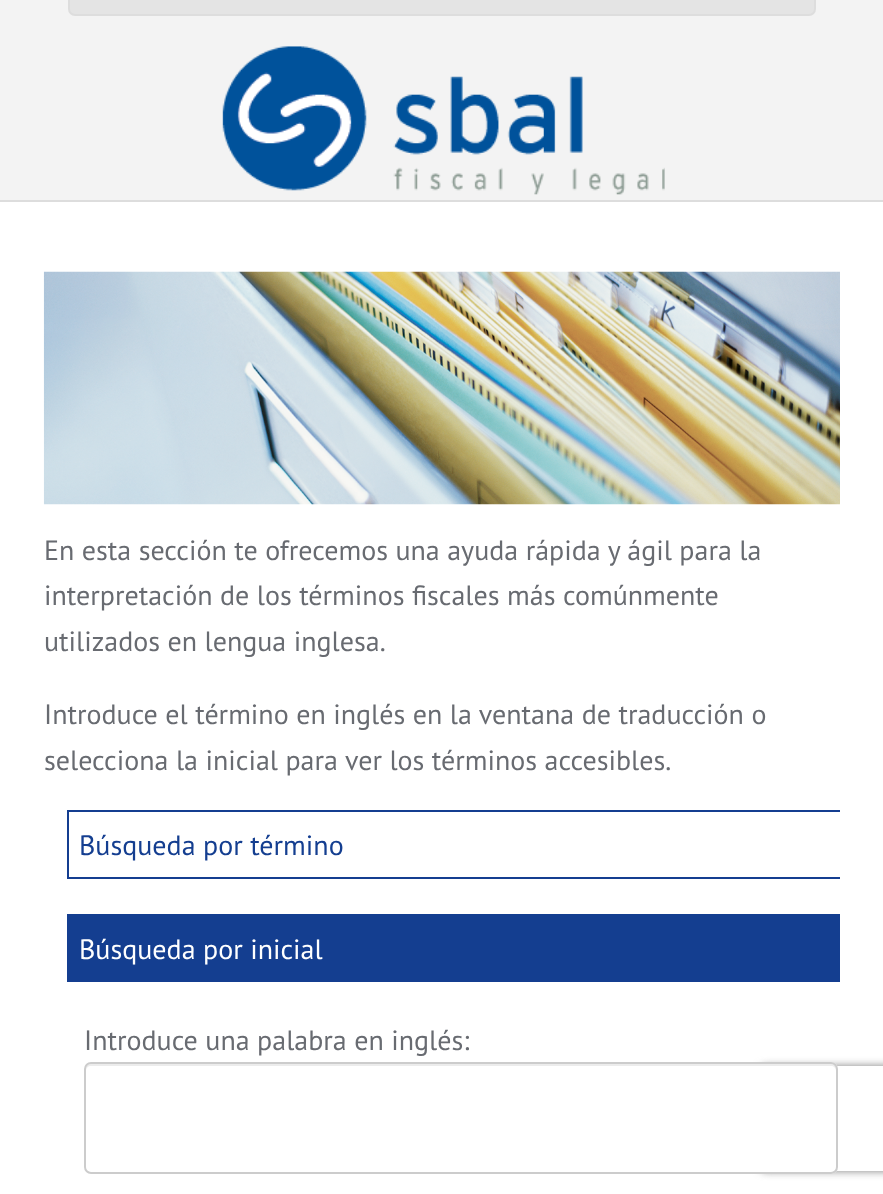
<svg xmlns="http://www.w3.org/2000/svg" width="883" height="1194">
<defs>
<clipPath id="clip1"><rect x="44" y="271" width="796" height="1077"/></clipPath>
<clipPath id="clip2"><path d="M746 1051h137v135h-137zm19 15h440c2 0 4 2 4 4v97c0 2-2 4-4 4h-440c-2 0-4-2-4-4v-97c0-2 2-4 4-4z" clip-rule="evenodd"/></clipPath>
</defs>
<rect width="100%" height="100%" fill="#fff"/>
<rect width="883" height="200" fill="#f3f3f3"/>
<rect y="200" width="883" height="2" fill="#ddd"/>
<rect x="69" y="-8" width="746" height="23" rx="6" fill="#e4e4e4" stroke="#ddd" stroke-width="2"/>
<image x="222" y="46" width="443" height="149" href="media/1.png"/>
<image x="43" y="271" width="797" height="234" href="media/2.png"/>
<text x="44" y="560" style="font-family:PT Sans;font-size:28px;fill:#686b71">En esta sección te ofrecemos una ayuda rápida y ágil para la</text>
<text x="44" y="605" style="font-family:PT Sans;font-size:28px;fill:#686b71">interpretación de los términos fiscales más comúnmente</text>
<text x="44" y="651" style="font-family:PT Sans;font-size:28px;fill:#686b71">utilizados en lengua inglesa.</text>
<text x="44" y="724" style="font-family:PT Sans;font-size:28px;fill:#686b71">Introduce el término en inglés en la ventana de traducción o</text>
<text x="44" y="770" style="font-family:PT Sans;font-size:28px;fill:#686b71">selecciona la inicial para ver los términos accesibles.</text>
<g clip-path="url(#clip1)">
<rect x="68" y="811" width="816" height="67" fill="none" stroke="#143e90" stroke-width="2"/>
</g>
<text x="79" y="855" style="font-family:PT Sans;font-size:28px;fill:#143e90">Búsqueda por término</text>
<rect x="67" y="914" width="773" height="68" fill="#143e90"/>
<text x="79" y="959" style="font-family:PT Sans;font-size:28px;fill:#fff">Búsqueda por inicial</text>
<text x="84" y="1050" style="font-family:PT Sans;font-size:28px;fill:#686b71">Introduce una palabra en inglés:</text>
<g clip-path="url(#clip2)">
<rect x="761" y="1066" width="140" height="105" rx="4" fill="#808080" filter="blur(4.5px)"/>
</g>
<rect x="84" y="1062" width="754" height="112" rx="7" fill="#fff"/>
<path d="M91 1066h740c3 0 5 2 5 5v98l-1 3c1-1 2-3 2-4v-99c0-3-2-5-5-5h-741c-3 0-5 2-5 5v2c0-3 2-5 5-5z" fill="#ececec"/>
<rect x="85" y="1063" width="752" height="110" rx="6" fill="none" stroke="#ccc" stroke-width="2"/>
</svg>
